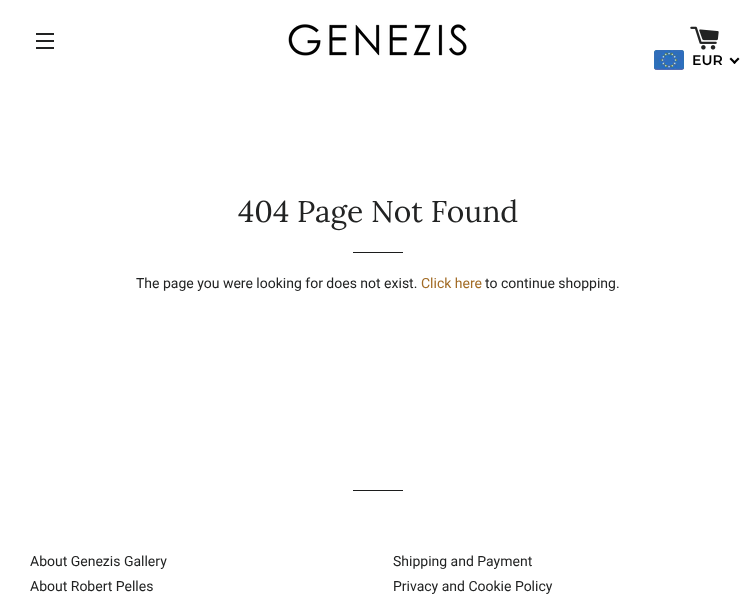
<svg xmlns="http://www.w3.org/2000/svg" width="756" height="599">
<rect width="100%" height="100%" fill="#fff"/>
<rect x="36" y="33" width="18" height="2" fill="#222323"/>
<rect x="36" y="40" width="18" height="2" fill="#222323"/>
<rect x="36" y="47" width="18" height="2" fill="#222323"/>
<image x="288" y="24" width="179" height="32" href="media/1.png"/>
<image x="690" y="26" width="29" height="24" href="media/2.png"/>
<image x="654" y="50" width="30" height="20" href="media/3.png"/>
<text x="692" y="65" style="font-family:Montserrat;font-size:14px;font-weight:600;fill:#000">EUR</text>
<path d="M738 57.5l1.5 1.5l-5 5l-1.5-1.5z" fill="#000"/>
<path d="M731 57.5l5 5l-1.5 1.5l-5-5z" fill="#000"/>
<text x="238" y="222" style="font-family:Lora;font-size:30px;fill:#222323">404 Page Not Found</text>
<rect x="353" y="252" width="50" height="1" fill="#1c1d1d"/>
<text x="136" y="288" style="font-family:Roboto;font-size:14px;fill:#222323">The page you were looking for does not exist.</text>
<text x="421" y="288" style="font-family:Roboto;font-size:14px;fill:#a26b25">Click here</text>
<text x="485" y="288" style="font-family:Roboto;font-size:14px;fill:#222323">to continue shopping.</text>
<rect x="353" y="490" width="50" height="1" fill="#1c1d1d"/>
<text x="30" y="566" style="font-family:Roboto;font-size:14px;fill:#222323">About Genezis Gallery</text>
<text x="30" y="591" style="font-family:Roboto;font-size:14px;fill:#222323">About Robert Pelles</text>
<text x="393" y="566" style="font-family:Roboto;font-size:14px;fill:#222323">Shipping and Payment</text>
<text x="393" y="591" style="font-family:Roboto;font-size:14px;fill:#222323">Privacy and Cookie Policy</text>
</svg>
